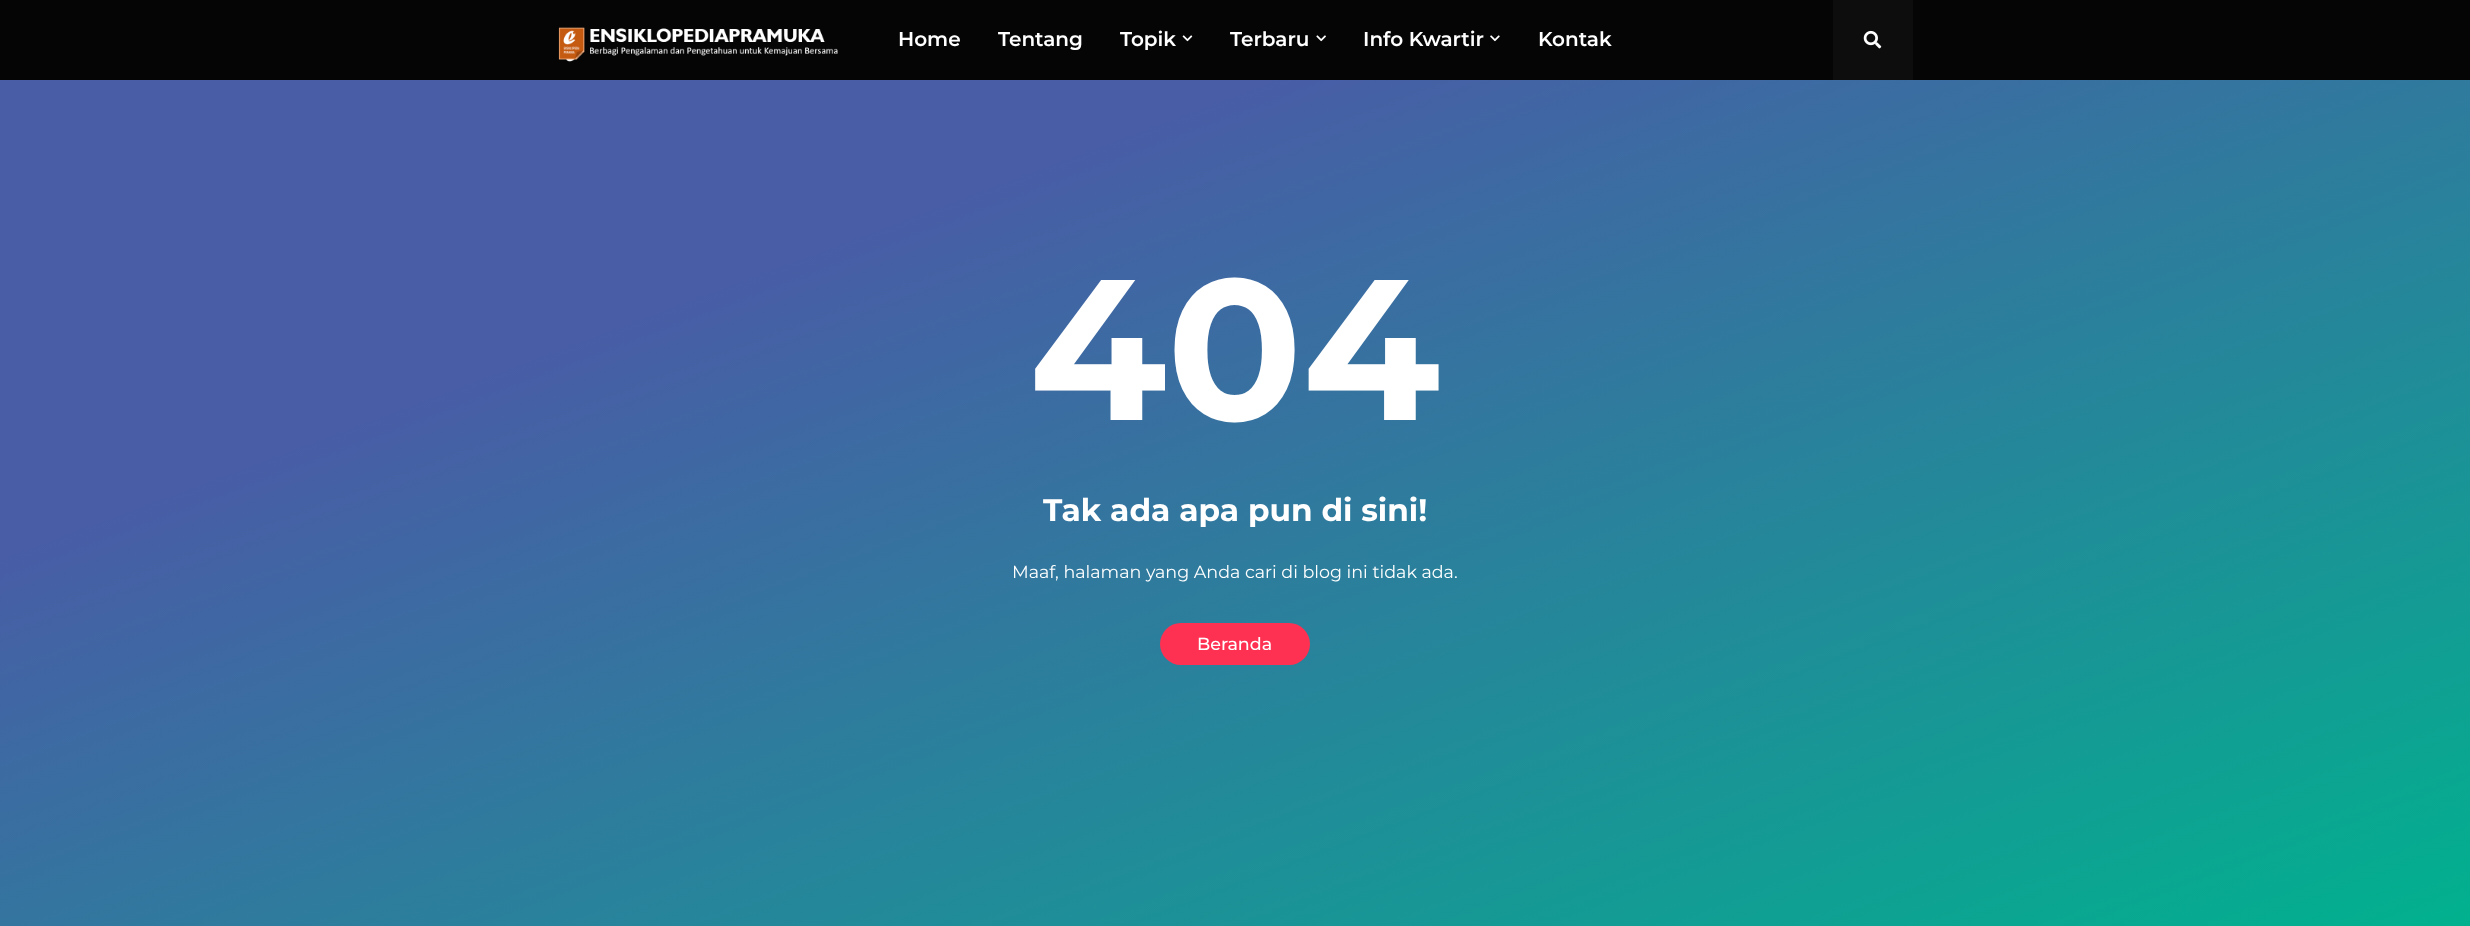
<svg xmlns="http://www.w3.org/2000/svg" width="2470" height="926">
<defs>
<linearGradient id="g1" gradientUnits="userSpaceOnUse" x1="930" y1="-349" x2="1540" y2="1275"><stop offset="0.3" stop-color="#485da6"/><stop offset="1" stop-color="#01b18e"/></linearGradient>
</defs>
<rect width="100%" height="100%" fill="#fff"/>
<rect y="80" width="2470" height="846" fill="url(#g1)"/>
<rect width="2470" height="80" fill="#050505"/>
<image x="558" y="27" width="280" height="35" href="media/1.png"/>
<text x="898" y="46" style="font-family:Montserrat;font-size:20px;font-weight:600;fill:#fff">Home</text>
<text x="998" y="46" style="font-family:Montserrat;font-size:20px;font-weight:600;fill:#fff">Tentang</text>
<text x="1120" y="46" style="font-family:Montserrat;font-size:20px;font-weight:600;fill:#fff">Topik</text>
<image x="1182" y="35" width="11" height="7" href="media/2.png"/>
<text x="1230" y="46" style="font-family:Montserrat;font-size:20px;font-weight:600;fill:#fff">Terbaru</text>
<image x="1316" y="35" width="10" height="7" href="media/3.png"/>
<text x="1363" y="46" style="font-family:Montserrat;font-size:20px;font-weight:600;fill:#fff">Info Kwartir</text>
<image x="1490" y="35" width="10" height="7" href="media/4.png"/>
<text x="1538" y="46" style="font-family:Montserrat;font-size:20px;font-weight:600;fill:#fff">Kontak</text>
<rect x="1833" width="80" height="80" fill="#0d0d0d"/>
<image x="1863" y="30" width="19" height="19" href="media/5.png"/>
<text x="1029" y="420" style="font-family:Montserrat;font-size:200px;font-weight:bold;fill:#fff">404</text>
<text x="1043" y="521" style="font-family:Montserrat;font-size:31.25px;font-weight:bold;fill:#fff">Tak ada apa pun di sini!</text>
<text x="1012" y="578" style="font-family:Montserrat;font-size:17.5px;fill:#fff">Maaf, halaman yang Anda cari di blog ini tidak ada.</text>
<rect x="1160" y="623" width="150" height="42" rx="21" fill="#ff3152"/>
<text x="1197" y="650" style="font-family:Montserrat;font-size:17.5px;font-weight:500;fill:#fff">Beranda</text>
</svg>
